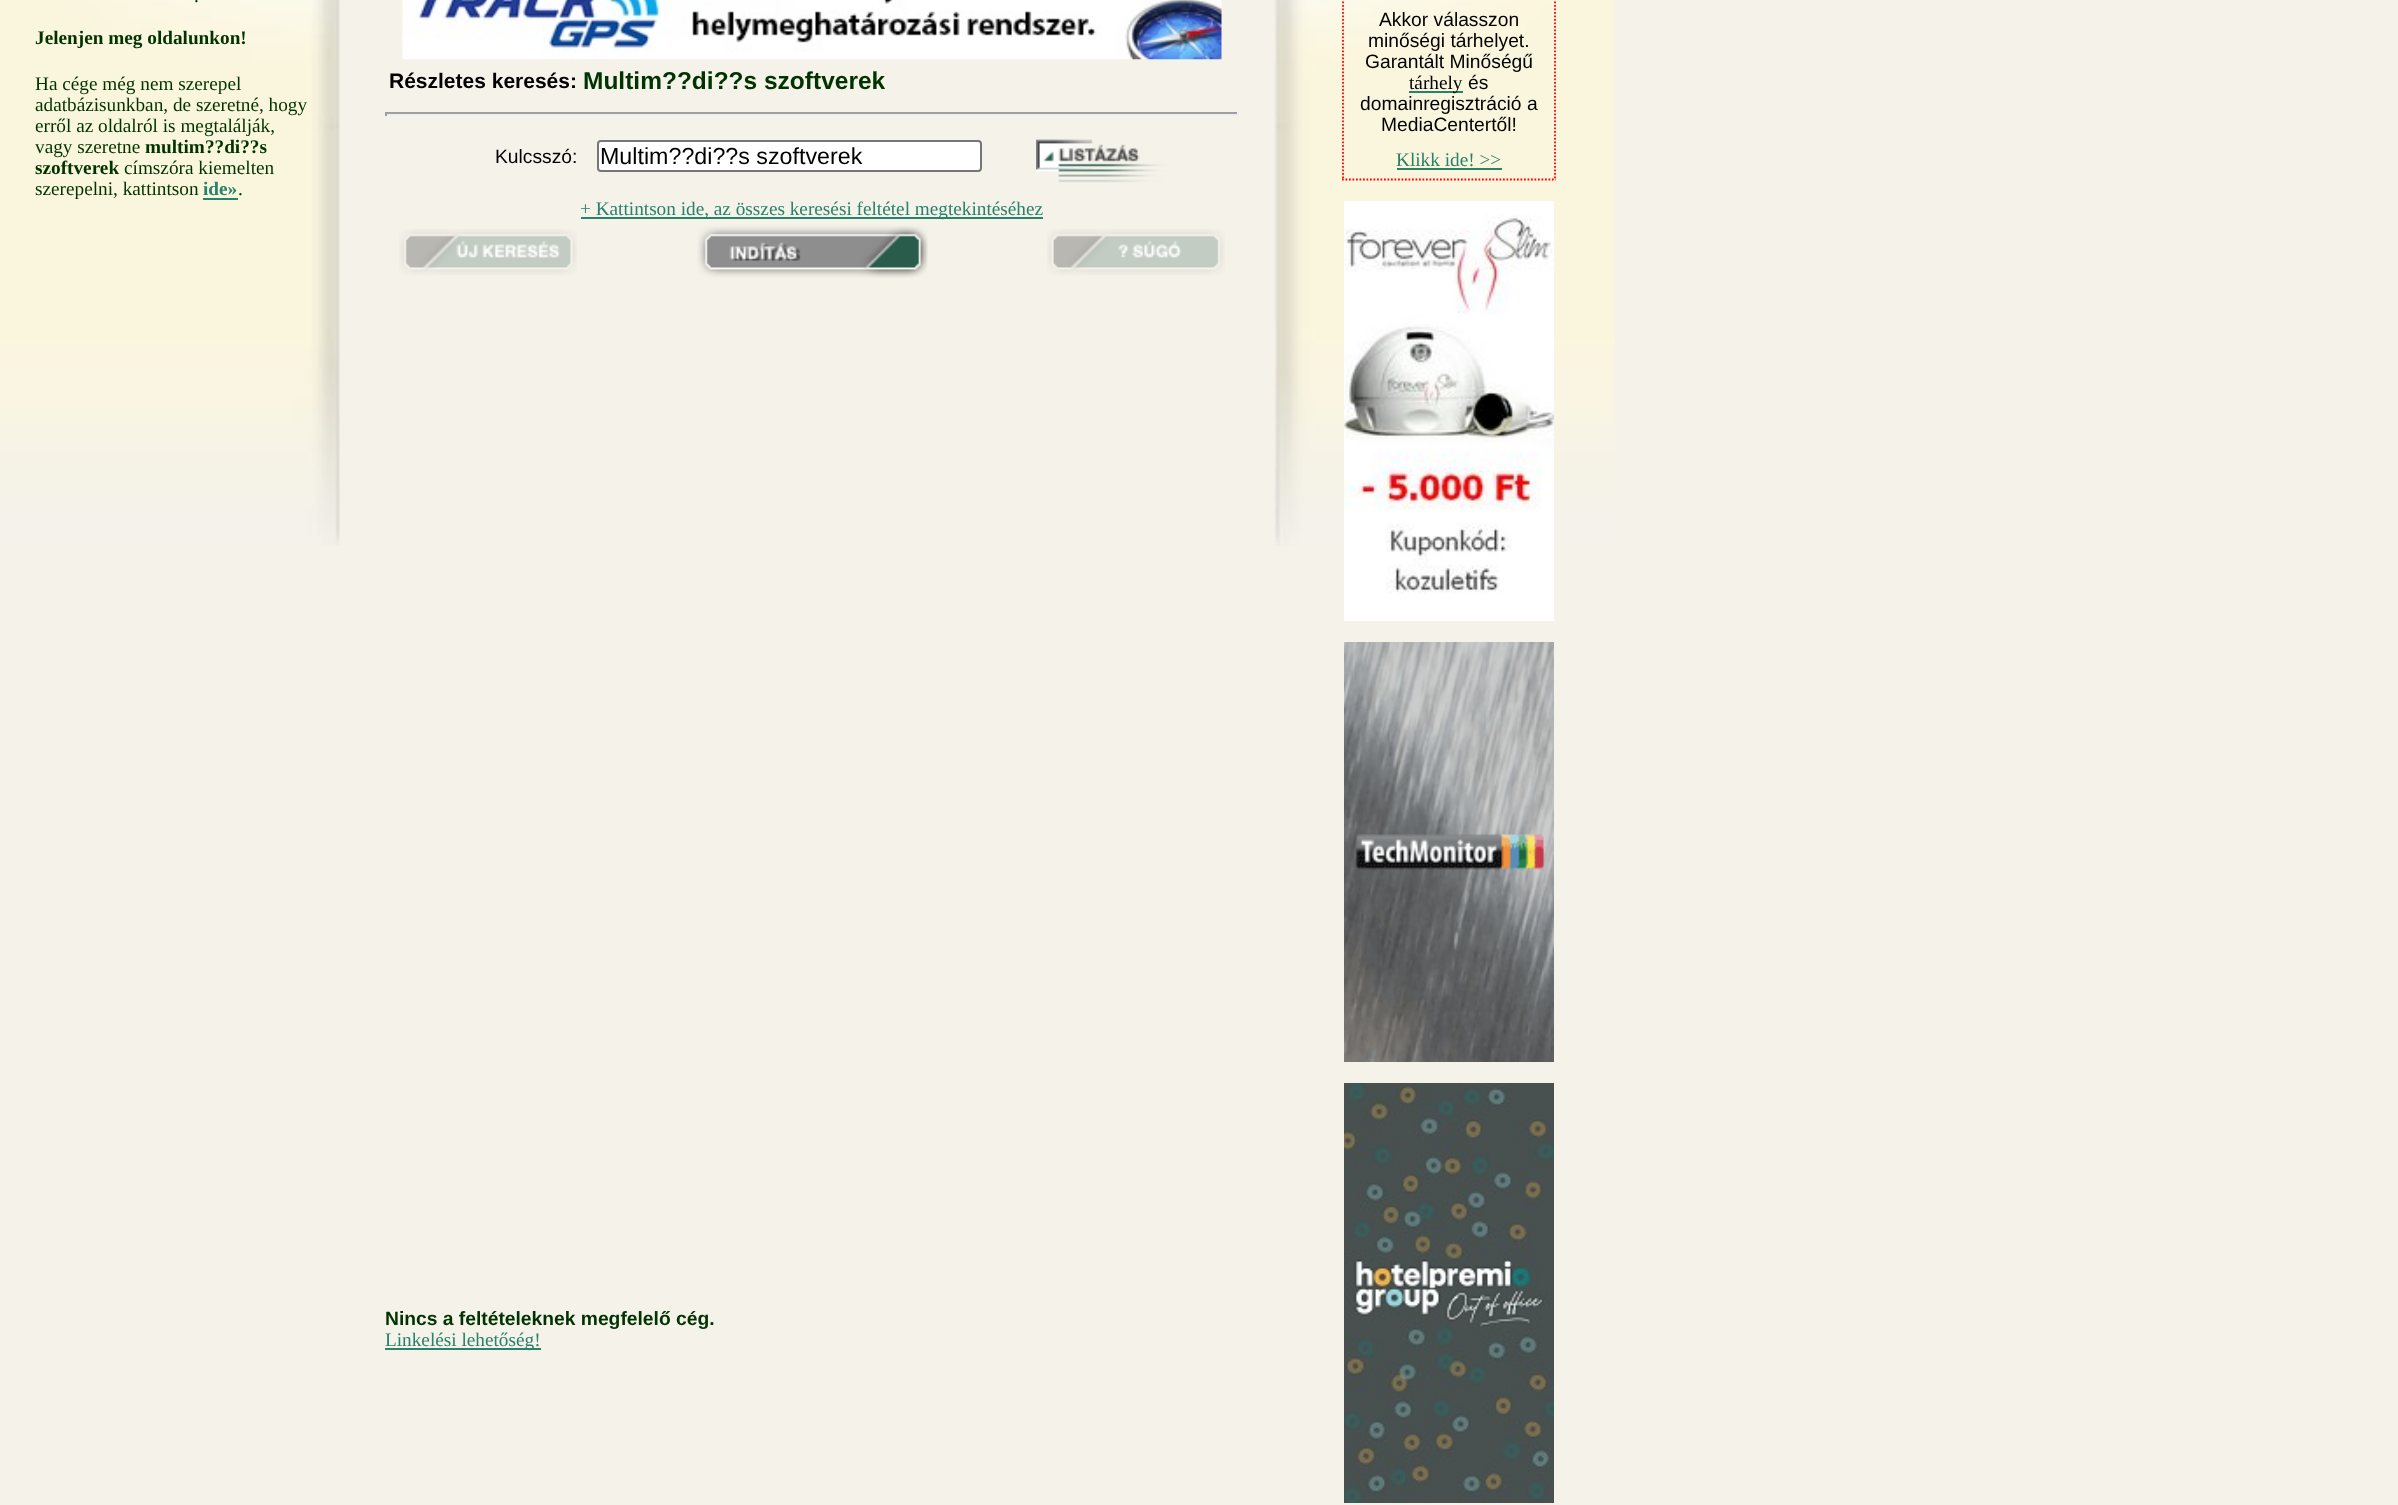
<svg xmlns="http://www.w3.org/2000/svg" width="2398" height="1505">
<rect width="100%" height="100%" fill="#f5f2ea"/>
<image x="0" y="0" width="340" height="545" href="media/1.png"/>
<text x="194" y="2" style="font-family:Liberation Serif;font-size:19.25px;fill:#013300">.</text>
<text x="35" y="44" style="font-family:Liberation Serif;font-size:19.25px;font-weight:bold;fill:#013300">Jelenjen meg oldalunkon!</text>
<text x="35" y="90" style="font-family:Liberation Serif;font-size:19.25px;fill:#013300">Ha cége még nem szerepel</text>
<text x="35" y="111" style="font-family:Liberation Serif;font-size:19.25px;fill:#013300">adatbázisunkban, de szeretné, hogy</text>
<text x="35" y="132" style="font-family:Liberation Serif;font-size:19.25px;fill:#013300">erről az oldalról is megtalálják,</text>
<text x="35" y="153" style="font-family:Liberation Serif;font-size:19.25px;fill:#013300">vagy szeretne</text>
<text x="145" y="153" style="font-family:Liberation Serif;font-size:19.25px;font-weight:bold;fill:#013300">multim??di??s</text>
<text x="35" y="174" style="font-family:Liberation Serif;font-size:19.25px;font-weight:bold;fill:#013300">szoftverek</text>
<text x="124" y="174" style="font-family:Liberation Serif;font-size:19.25px;fill:#013300">címszóra kiemelten</text>
<text x="35" y="195" style="font-family:Liberation Serif;font-size:19.25px;fill:#013300">szerepelni, kattintson</text>
<text x="203" y="195" style="font-family:Liberation Serif;font-size:19.25px;font-weight:bold;fill:#28816a">ide»</text>
<rect x="203" y="198" width="35" height="2" fill="#28816a"/>
<text x="238" y="195" style="font-family:Liberation Serif;font-size:19.25px;fill:#013300">.</text>
<image x="402" y="0" width="820" height="60" href="media/2.png"/>
<text x="389" y="88" style="font-family:Liberation Sans;font-size:21px;font-weight:bold;fill:#000">Részletes keresés:</text>
<text x="583" y="89" style="font-family:Liberation Sans;font-size:24.5px;font-weight:bold;fill:#013300">Multim??di??s szoftverek</text>
<rect x="385" y="112" width="854" height="2" fill="#9f9f9f"/>
<rect x="1237" y="112" width="2" height="4" fill="#eee"/>
<rect x="385" y="114" width="854" height="2" fill="#eee"/>
<rect x="385" y="112" width="2" height="4" fill="#9f9f9f"/>
<text x="495" y="163" style="font-family:Liberation Sans;font-size:19.25px;fill:#000">Kulcsszó:</text>
<rect x="598" y="141" width="383" height="30" rx="3" fill="#fff" stroke="#767676" stroke-width="2"/>
<text x="600" y="164" style="font-family:Liberation Sans;font-size:23.25px;fill:#000">Multim??di??s szoftverek</text>
<image x="1036" y="139" width="131" height="44" href="media/3.png"/>
<rect x="581" y="217" width="462" height="2" fill="#28816a"/>
<text x="580" y="215" style="font-family:Liberation Serif;font-size:19.25px;fill:#28816a">+ Kattintson ide, az összes keresési feltétel megtekintéséhez</text>
<image x="399" y="229" width="178" height="46" href="media/4.png"/>
<image x="697" y="225" width="231" height="53" href="media/5.png"/>
<image x="1047" y="229" width="178" height="46" href="media/6.png"/>
<text x="385" y="1325" style="font-family:Liberation Sans;font-size:19.25px;font-weight:bold;fill:#013300">Nincs a feltételeknek megfelelő cég.</text>
<rect x="385" y="1348" width="156" height="2" fill="#28816a"/>
<text x="385" y="1346" style="font-family:Liberation Serif;font-size:19.25px;fill:#28816a">Linkelési lehetőség!</text>
<image x="1274" y="0" width="341" height="546" href="media/7.png"/>
<path d="M1555-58v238" fill="none" stroke="#f00" stroke-width="1.8" stroke-dasharray="1.75 1.75"/>
<path d="M1342 179.5h214" fill="none" stroke="#f00" stroke-width="1.8" stroke-dasharray="1.75 1.75"/>
<path d="M1343-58v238" fill="none" stroke="#f00" stroke-width="1.8" stroke-dasharray="1.75 1.75"/>
<text x="1379" y="26" style="font-family:Liberation Sans;font-size:19.25px;fill:#000">Akkor válasszon</text>
<text x="1368" y="47" style="font-family:Liberation Sans;font-size:19.25px;fill:#000">minőségi tárhelyet.</text>
<text x="1365" y="68" style="font-family:Liberation Sans;font-size:19.25px;fill:#000">Garantált Minőségű</text>
<rect x="1409" y="91" width="54" height="2" fill="#28816a"/>
<text x="1409" y="89" style="font-family:Liberation Serif;font-size:19.25px;fill:#000">tárhely</text>
<text x="1468" y="89" style="font-family:Liberation Sans;font-size:19.25px;fill:#000">és</text>
<text x="1360" y="110" style="font-family:Liberation Sans;font-size:19.25px;fill:#000">domainregisztráció a</text>
<text x="1381" y="131" style="font-family:Liberation Sans;font-size:19.25px;fill:#000">MediaCentertől!</text>
<text x="1396" y="166" style="font-family:Liberation Serif;font-size:19.25px;fill:#28816a">Klikk ide! &gt;&gt;</text>
<rect x="1397" y="168" width="105" height="2" fill="#28816a"/>
<image x="1344" y="201" width="210" height="420" href="media/8.png"/>
<image x="1344" y="642" width="210" height="420" href="media/9.png"/>
<image x="1344" y="1083" width="210" height="420" href="media/10.png"/>
</svg>
